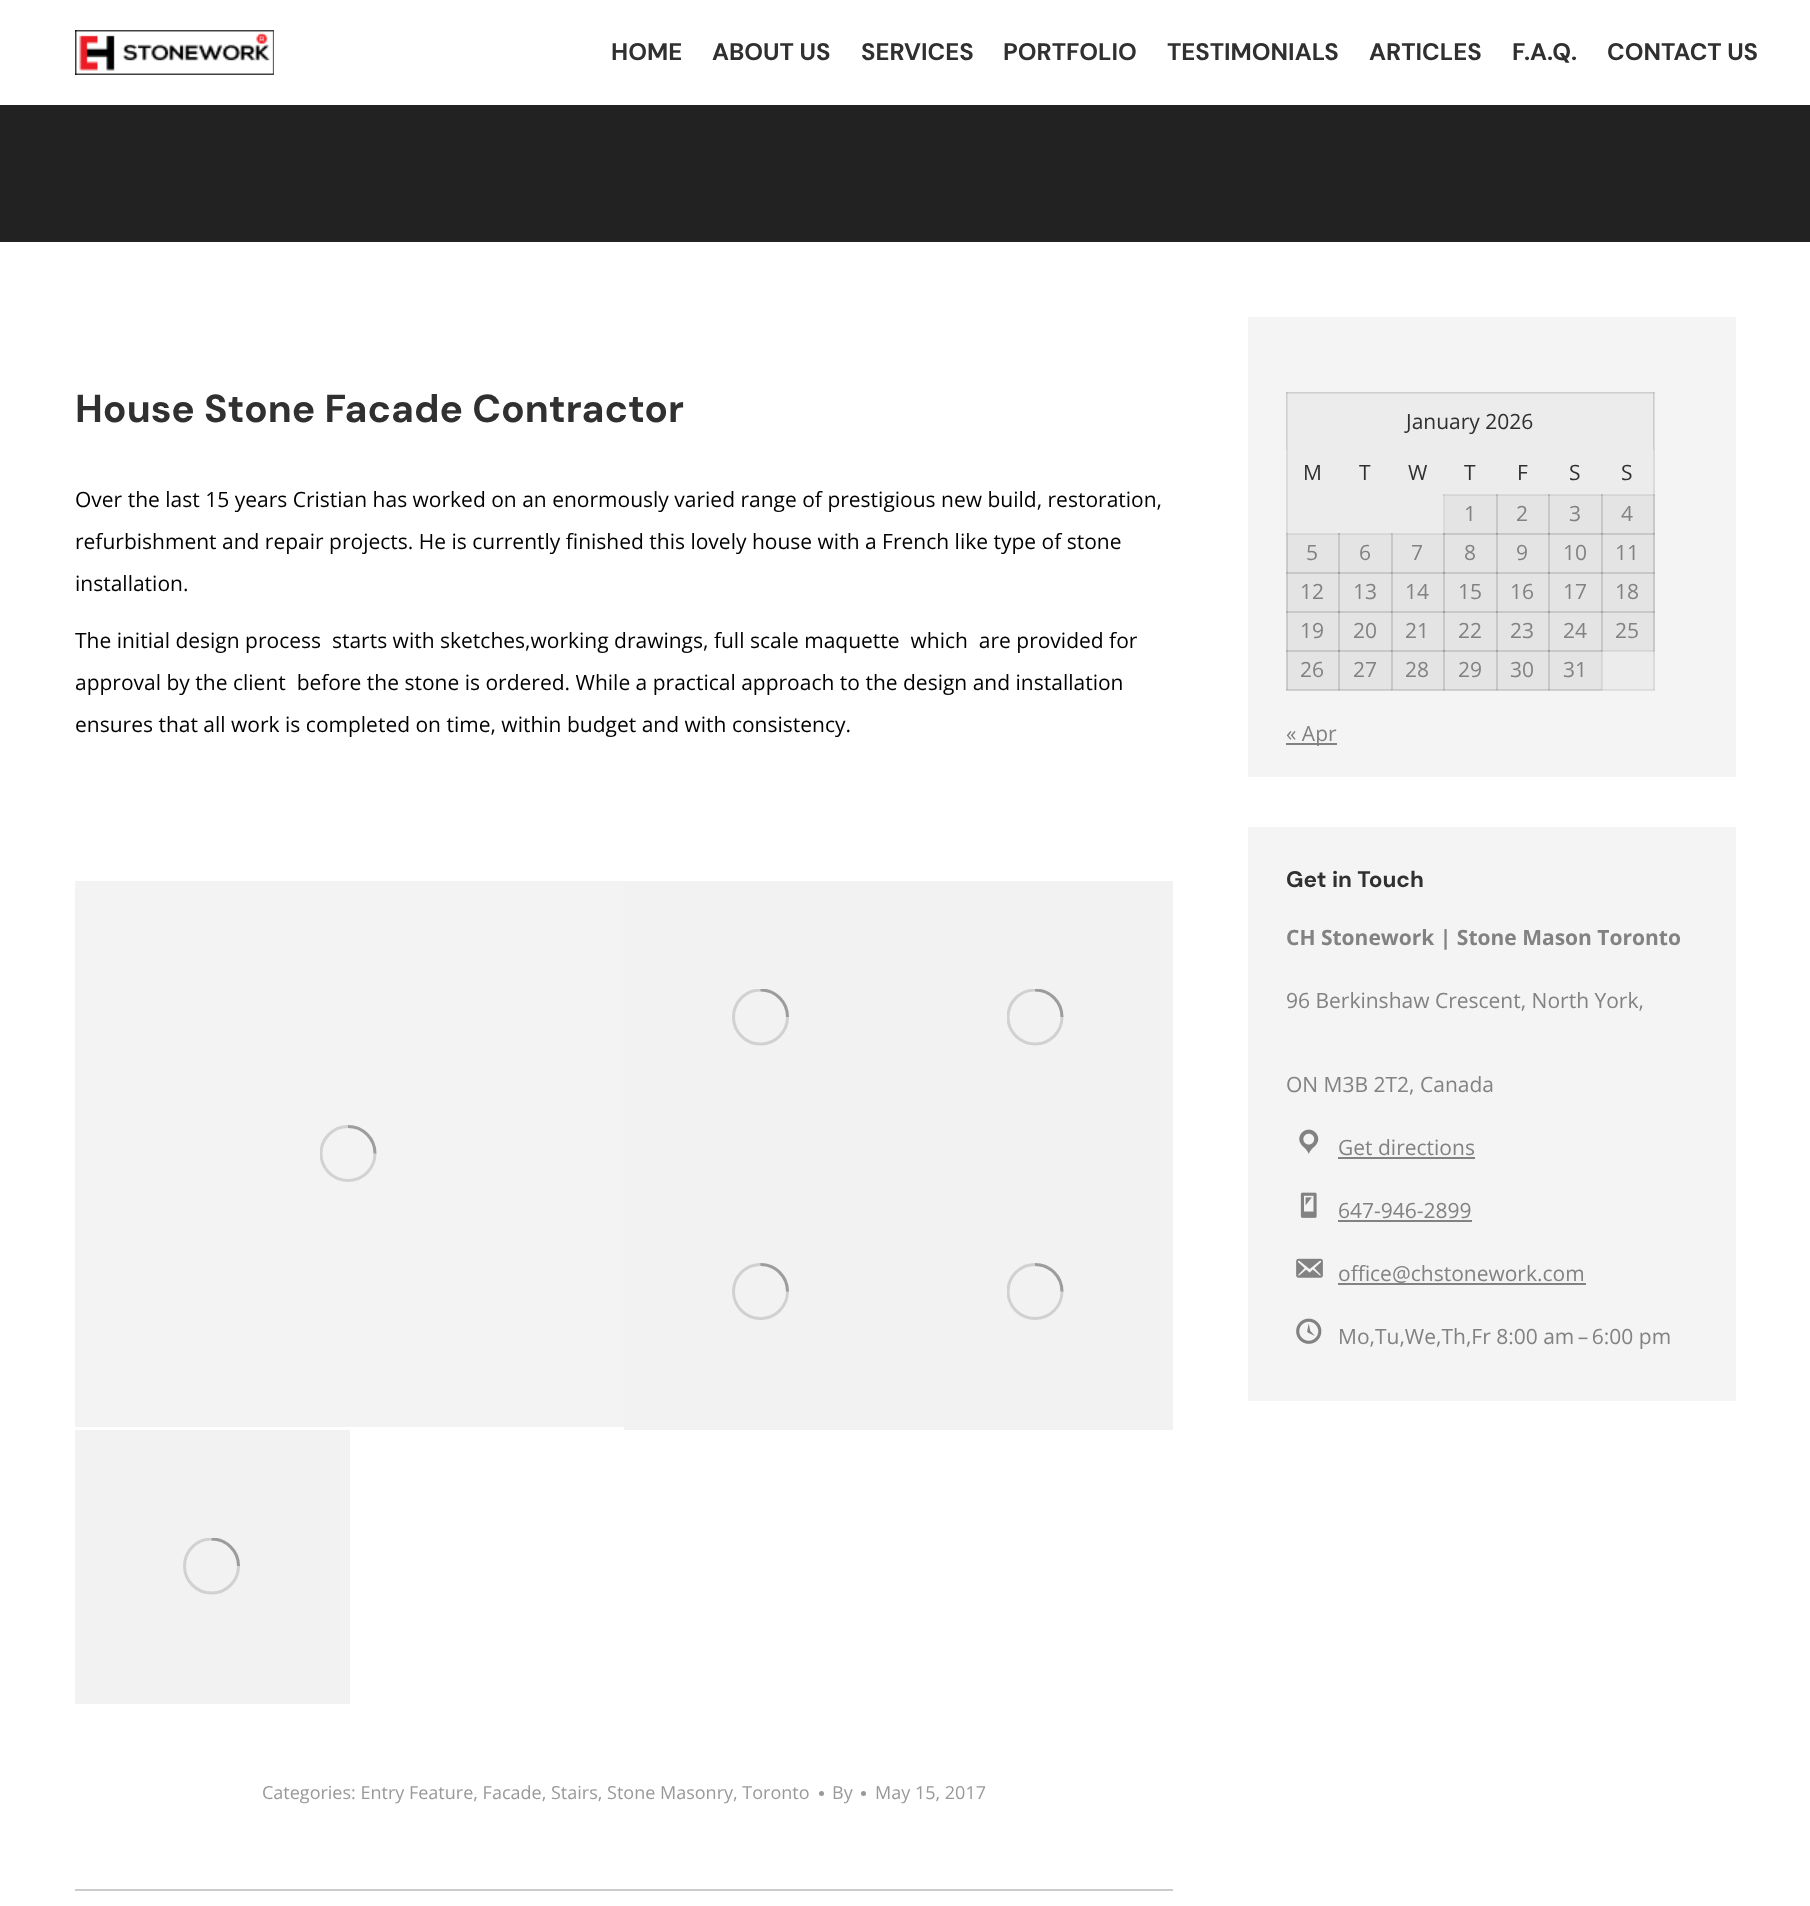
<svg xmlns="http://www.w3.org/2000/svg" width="1810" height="1906">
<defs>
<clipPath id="clip1"><rect x="320" y="1125" width="57" height="57"/></clipPath>
<clipPath id="clip2"><rect x="732" y="989" width="57" height="57"/></clipPath>
<clipPath id="clip3"><rect x="1007" y="989" width="57" height="57"/></clipPath>
<clipPath id="clip4"><rect x="1007" y="1263" width="57" height="57"/></clipPath>
<clipPath id="clip5"><rect x="183" y="1538" width="57" height="57"/></clipPath>
</defs>
<rect width="100%" height="100%" fill="#fff"/>
<image x="75" y="30" width="199" height="45" href="media/1.png"/>
<text x="611" y="60" style="font-family:DM Sans;font-size:24px;font-weight:bold;fill:#303030">HOME</text>
<text x="712" y="60" style="font-family:DM Sans;font-size:24px;font-weight:bold;fill:#303030">ABOUT US</text>
<text x="861" y="60" style="font-family:DM Sans;font-size:24px;font-weight:bold;fill:#303030">SERVICES</text>
<text x="1003" y="60" style="font-family:DM Sans;font-size:24px;font-weight:bold;fill:#303030">PORTFOLIO</text>
<text x="1167" y="60" style="font-family:DM Sans;font-size:24px;font-weight:bold;fill:#303030">TESTIMONIALS</text>
<text x="1369" y="60" style="font-family:DM Sans;font-size:24px;font-weight:bold;fill:#303030">ARTICLES</text>
<text x="1512" y="60" style="font-family:DM Sans;font-size:24px;font-weight:bold;fill:#303030">F.A.Q.</text>
<text x="1607" y="60" style="font-family:DM Sans;font-size:24px;font-weight:bold;fill:#303030">CONTACT US</text>
<rect y="105" width="1810" height="137" fill="#222"/>
<text x="75" y="422" style="font-family:DM Sans;font-size:39px;font-weight:bold;fill:#303030">House Stone Facade Contractor</text>
<text x="75" y="507" style="font-family:Open Sans;font-size:21px;fill:#000">Over the last 15 years Cristian has worked on an enormously varied range of prestigious new build, restoration,</text>
<text x="75" y="549" style="font-family:Open Sans;font-size:21px;fill:#000">refurbishment and repair projects. He is currently finished this lovely house with a French like type of stone</text>
<text x="75" y="591" style="font-family:Open Sans;font-size:21px;fill:#000">installation.</text>
<text x="75" y="648" style="font-family:Open Sans;font-size:21px;fill:#000" xml:space="preserve">The initial design process  starts with sketches,working drawings, full scale maquette  which  are provided for</text>
<text x="75" y="690" style="font-family:Open Sans;font-size:21px;fill:#000" xml:space="preserve">approval by the client  before the stone is ordered. While a practical approach to the design and installation</text>
<text x="75" y="732" style="font-family:Open Sans;font-size:21px;fill:#000">ensures that all work is completed on time, within budget and with consistency.</text>
<rect x="75" y="881" width="549" height="546" fill="#f3f3f3"/>
<g clip-path="url(#clip1)">
<circle cx="348" cy="1153.5" r="27" fill="none" stroke="#d2d2d2" stroke-width="3"/>
</g>
<path d="M375 1153.5c0-15-12-27-27-27" fill="none" stroke="#00000040" stroke-width="3"/>
<rect x="624" y="881" width="549" height="274" fill="#f2f2f2"/>
<g clip-path="url(#clip2)">
<circle cx="760.5" cy="1017" r="27" fill="none" stroke="#d1d1d1" stroke-width="3"/>
<path d="M787.5 1017c0-15-12-27-27-27" fill="none" stroke="#00000040" stroke-width="3"/>
</g>
<g clip-path="url(#clip3)">
<circle cx="1035" cy="1017" r="27" fill="none" stroke="#d1d1d1" stroke-width="3"/>
<path d="M1062 1017c0-15-12-27-27-27" fill="none" stroke="#00000040" stroke-width="3"/>
</g>
<rect x="624" y="1155" width="549" height="275" fill="#f2f2f2"/>
<circle cx="760.5" cy="1291.5" r="27" fill="none" stroke="#d1d1d1" stroke-width="3"/>
<path d="M787.5 1291.5c0-15-12-27-27-27" fill="none" stroke="#00000040" stroke-width="3"/>
<g clip-path="url(#clip4)">
<circle cx="1035" cy="1291.5" r="27" fill="none" stroke="#d1d1d1" stroke-width="3"/>
</g>
<path d="M1062 1291.5c0-15-12-27-27-27" fill="none" stroke="#00000040" stroke-width="3"/>
<rect x="75" y="1430" width="275" height="274" fill="#f2f2f2"/>
<g clip-path="url(#clip5)">
<circle cx="211.5" cy="1566" r="27" fill="none" stroke="#d1d1d1" stroke-width="3"/>
<path d="M238.5 1566c0-15-12-27-27-27" fill="none" stroke="#00000040" stroke-width="3"/>
</g>
<text x="262" y="1799" style="font-family:Open Sans;font-size:18px;fill:#999">Categories: Entry Feature, Facade, Stairs, Stone Masonry, Toronto</text>
<circle cx="821.5" cy="1793.5" r="2.5" fill="#999"/>
<text x="832" y="1799" style="font-family:Open Sans;font-size:18px;fill:#999">By</text>
<circle cx="863.5" cy="1793.5" r="2.5" fill="#999"/>
<text x="875" y="1799" style="font-family:Open Sans;font-size:18px;fill:#999">May 15, 2017</text>
<rect x="75" y="1889" width="1098" height="2" fill="#ccc"/>
<rect x="1248" y="317" width="488" height="460" fill="#f4f4f4"/>
<rect x="1286" y="392" width="369" height="298" fill="#ececec"/>
<path d="M1286 392h368l-1 1h-366z" fill="#dcdcdc"/>
<path d="M1654 392v58h-1v-57z" fill="#82828226"/>
<path d="M1286 450v-58l1 1v57z" fill="#82828226"/>
<rect x="1286" y="392" width="369" height="2" fill="#82828226"/>
<rect x="1445" y="495" width="210" height="39" fill="#e4e4e4"/>
<rect x="1287" y="534" width="368" height="39" fill="#e4e4e4"/>
<rect x="1287" y="573" width="368" height="39" fill="#e4e4e4"/>
<rect x="1602" y="612" width="53" height="39" fill="#e4e4e4"/>
<rect x="1653" y="392" width="2" height="298" fill="#82828226"/>
<rect x="1287" y="651" width="263" height="39" fill="#e4e4e4"/>
<rect x="1550" y="652" width="52" height="38" fill="#e4e4e4"/>
<rect x="1286" y="689" width="369" height="2" fill="#82828226"/>
<rect x="1287" y="612" width="263" height="39" fill="#e4e4e4"/>
<rect x="1286" y="392" width="2" height="298" fill="#82828226"/>
<text x="1406" y="429" style="font-family:Open Sans;font-size:21px;fill:#303030">January 2026</text>
<text x="1303" y="480" style="font-family:Open Sans;font-size:21px;fill:#303030">M</text>
<text x="1359" y="480" style="font-family:Open Sans;font-size:21px;fill:#303030">T</text>
<text x="1408" y="480" style="font-family:Open Sans;font-size:21px;fill:#303030">W</text>
<text x="1464" y="480" style="font-family:Open Sans;font-size:21px;fill:#303030">T</text>
<text x="1517" y="480" style="font-family:Open Sans;font-size:21px;fill:#303030">F</text>
<text x="1569" y="480" style="font-family:Open Sans;font-size:21px;fill:#303030">S</text>
<text x="1621" y="480" style="font-family:Open Sans;font-size:21px;fill:#303030">S</text>
<rect x="1601" y="494" width="54" height="2" fill="#82828226"/>
<rect x="1601" y="533" width="54" height="2" fill="#82828226"/>
<rect x="1601" y="572" width="54" height="2" fill="#82828226"/>
<rect x="1550" y="612" width="52" height="38" fill="#e4e4e4"/>
<rect x="1601" y="611" width="54" height="2" fill="#82828226"/>
<rect x="1653" y="611" width="2" height="40" fill="#82828226"/>
<rect x="1653" y="572" width="2" height="40" fill="#82828226"/>
<rect x="1653" y="533" width="2" height="40" fill="#82828226"/>
<rect x="1653" y="494" width="2" height="40" fill="#82828226"/>
<rect x="1548" y="650" width="54" height="2" fill="#d5d5d5"/>
<rect x="1601" y="650" width="2" height="40" fill="#82828226"/>
<rect x="1601" y="650" width="54" height="2" fill="#82828226"/>
<rect x="1601" y="611" width="2" height="40" fill="#82828226"/>
<rect x="1548" y="611" width="54" height="2" fill="#82828226"/>
<rect x="1601" y="611" width="2" height="40" fill="#82828226"/>
<rect x="1601" y="611" width="54" height="2" fill="#82828226"/>
<rect x="1601" y="572" width="2" height="40" fill="#82828226"/>
<rect x="1548" y="572" width="54" height="2" fill="#82828226"/>
<rect x="1601" y="572" width="2" height="40" fill="#82828226"/>
<rect x="1601" y="572" width="54" height="2" fill="#82828226"/>
<rect x="1601" y="533" width="2" height="40" fill="#82828226"/>
<rect x="1548" y="533" width="54" height="2" fill="#82828226"/>
<rect x="1601" y="533" width="2" height="40" fill="#82828226"/>
<rect x="1601" y="533" width="54" height="2" fill="#82828226"/>
<rect x="1601" y="494" width="2" height="40" fill="#82828226"/>
<rect x="1548" y="494" width="54" height="2" fill="#82828226"/>
<rect x="1601" y="494" width="2" height="40" fill="#82828226"/>
<rect x="1548" y="689" width="54" height="2" fill="#82828226"/>
<rect x="1548" y="650" width="2" height="40" fill="#82828226"/>
<rect x="1496" y="650" width="54" height="2" fill="#82828226"/>
<rect x="1548" y="650" width="2" height="40" fill="#82828226"/>
<rect x="1548" y="650" width="54" height="2" fill="#82828226"/>
<rect x="1548" y="611" width="2" height="40" fill="#82828226"/>
<rect x="1496" y="611" width="54" height="2" fill="#82828226"/>
<rect x="1548" y="611" width="2" height="40" fill="#82828226"/>
<rect x="1548" y="611" width="54" height="2" fill="#82828226"/>
<rect x="1548" y="572" width="2" height="40" fill="#82828226"/>
<rect x="1496" y="572" width="54" height="2" fill="#82828226"/>
<rect x="1548" y="572" width="2" height="40" fill="#82828226"/>
<rect x="1548" y="572" width="54" height="2" fill="#82828226"/>
<rect x="1548" y="533" width="2" height="40" fill="#82828226"/>
<rect x="1496" y="533" width="54" height="2" fill="#82828226"/>
<rect x="1548" y="533" width="2" height="40" fill="#82828226"/>
<rect x="1548" y="533" width="54" height="2" fill="#82828226"/>
<rect x="1548" y="494" width="2" height="40" fill="#82828226"/>
<rect x="1496" y="494" width="54" height="2" fill="#82828226"/>
<rect x="1548" y="494" width="2" height="40" fill="#82828226"/>
<rect x="1496" y="689" width="54" height="2" fill="#82828226"/>
<rect x="1496" y="650" width="2" height="40" fill="#82828226"/>
<rect x="1443" y="650" width="54" height="2" fill="#82828226"/>
<rect x="1496" y="650" width="2" height="40" fill="#82828226"/>
<rect x="1496" y="650" width="54" height="2" fill="#82828226"/>
<rect x="1496" y="611" width="2" height="40" fill="#82828226"/>
<rect x="1443" y="611" width="54" height="2" fill="#82828226"/>
<rect x="1496" y="611" width="2" height="40" fill="#82828226"/>
<rect x="1496" y="611" width="54" height="2" fill="#82828226"/>
<rect x="1496" y="572" width="2" height="40" fill="#82828226"/>
<rect x="1443" y="572" width="54" height="2" fill="#82828226"/>
<rect x="1496" y="572" width="2" height="40" fill="#82828226"/>
<rect x="1496" y="572" width="54" height="2" fill="#82828226"/>
<rect x="1496" y="533" width="2" height="40" fill="#82828226"/>
<rect x="1443" y="533" width="54" height="2" fill="#82828226"/>
<rect x="1496" y="533" width="2" height="40" fill="#82828226"/>
<rect x="1496" y="533" width="54" height="2" fill="#82828226"/>
<rect x="1496" y="494" width="2" height="40" fill="#82828226"/>
<rect x="1443" y="494" width="54" height="2" fill="#82828226"/>
<rect x="1496" y="494" width="2" height="40" fill="#82828226"/>
<rect x="1443" y="689" width="54" height="2" fill="#82828226"/>
<rect x="1443" y="650" width="2" height="40" fill="#82828226"/>
<rect x="1391" y="650" width="54" height="2" fill="#82828226"/>
<rect x="1443" y="650" width="2" height="40" fill="#82828226"/>
<rect x="1443" y="650" width="54" height="2" fill="#82828226"/>
<rect x="1443" y="611" width="2" height="40" fill="#82828226"/>
<rect x="1391" y="611" width="54" height="2" fill="#82828226"/>
<rect x="1443" y="611" width="2" height="40" fill="#82828226"/>
<rect x="1443" y="611" width="54" height="2" fill="#82828226"/>
<rect x="1443" y="572" width="2" height="40" fill="#82828226"/>
<rect x="1391" y="572" width="54" height="2" fill="#82828226"/>
<rect x="1443" y="572" width="2" height="40" fill="#82828226"/>
<rect x="1443" y="572" width="54" height="2" fill="#82828226"/>
<rect x="1443" y="533" width="2" height="40" fill="#82828226"/>
<rect x="1391" y="533" width="54" height="2" fill="#82828226"/>
<rect x="1443" y="533" width="2" height="40" fill="#82828226"/>
<rect x="1443" y="533" width="54" height="2" fill="#82828226"/>
<rect x="1443" y="494" width="2" height="40" fill="#82828226"/>
<text x="1464" y="521" style="font-family:Open Sans;font-size:21px;fill:#828282">1</text>
<text x="1516" y="521" style="font-family:Open Sans;font-size:21px;fill:#828282">2</text>
<text x="1569" y="521" style="font-family:Open Sans;font-size:21px;fill:#828282">3</text>
<text x="1621" y="521" style="font-family:Open Sans;font-size:21px;fill:#828282">4</text>
<rect x="1391" y="689" width="54" height="2" fill="#82828226"/>
<rect x="1391" y="650" width="2" height="40" fill="#82828226"/>
<rect x="1338" y="650" width="54" height="2" fill="#82828226"/>
<rect x="1391" y="650" width="2" height="40" fill="#82828226"/>
<rect x="1391" y="650" width="54" height="2" fill="#82828226"/>
<rect x="1391" y="611" width="2" height="40" fill="#82828226"/>
<rect x="1338" y="611" width="54" height="2" fill="#82828226"/>
<rect x="1391" y="611" width="2" height="40" fill="#82828226"/>
<rect x="1391" y="611" width="54" height="2" fill="#82828226"/>
<rect x="1391" y="572" width="2" height="40" fill="#82828226"/>
<rect x="1338" y="572" width="54" height="2" fill="#82828226"/>
<rect x="1391" y="572" width="2" height="40" fill="#82828226"/>
<rect x="1391" y="572" width="54" height="2" fill="#82828226"/>
<rect x="1391" y="533" width="2" height="40" fill="#82828226"/>
<rect x="1338" y="533" width="54" height="2" fill="#82828226"/>
<rect x="1391" y="533" width="2" height="40" fill="#82828226"/>
<rect x="1338" y="689" width="54" height="2" fill="#82828226"/>
<rect x="1338" y="650" width="2" height="40" fill="#82828226"/>
<rect x="1286" y="650" width="54" height="2" fill="#82828226"/>
<rect x="1338" y="650" width="2" height="40" fill="#82828226"/>
<rect x="1338" y="650" width="54" height="2" fill="#82828226"/>
<rect x="1338" y="611" width="2" height="40" fill="#82828226"/>
<rect x="1286" y="611" width="54" height="2" fill="#82828226"/>
<rect x="1338" y="611" width="2" height="40" fill="#82828226"/>
<rect x="1338" y="611" width="54" height="2" fill="#82828226"/>
<rect x="1338" y="572" width="2" height="40" fill="#82828226"/>
<rect x="1286" y="572" width="54" height="2" fill="#82828226"/>
<rect x="1338" y="572" width="2" height="40" fill="#82828226"/>
<rect x="1338" y="572" width="54" height="2" fill="#82828226"/>
<rect x="1338" y="533" width="2" height="40" fill="#82828226"/>
<rect x="1286" y="533" width="54" height="2" fill="#82828226"/>
<rect x="1338" y="533" width="2" height="40" fill="#82828226"/>
<rect x="1286" y="689" width="54" height="2" fill="#82828226"/>
<rect x="1286" y="650" width="2" height="40" fill="#82828226"/>
<rect x="1286" y="650" width="54" height="2" fill="#82828226"/>
<rect x="1286" y="611" width="2" height="40" fill="#82828226"/>
<rect x="1286" y="611" width="54" height="2" fill="#82828226"/>
<rect x="1286" y="572" width="2" height="40" fill="#82828226"/>
<rect x="1286" y="572" width="54" height="2" fill="#82828226"/>
<rect x="1286" y="533" width="2" height="40" fill="#82828226"/>
<text x="1306" y="560" style="font-family:Open Sans;font-size:21px;fill:#828282">5</text>
<text x="1359" y="560" style="font-family:Open Sans;font-size:21px;fill:#828282">6</text>
<text x="1411" y="560" style="font-family:Open Sans;font-size:21px;fill:#828282">7</text>
<text x="1464" y="560" style="font-family:Open Sans;font-size:21px;fill:#828282">8</text>
<text x="1516" y="560" style="font-family:Open Sans;font-size:21px;fill:#828282">9</text>
<text x="1563" y="560" style="font-family:Open Sans;font-size:21px;fill:#828282">10</text>
<text x="1615" y="560" style="font-family:Open Sans;font-size:21px;fill:#828282">11</text>
<text x="1300" y="599" style="font-family:Open Sans;font-size:21px;fill:#828282">12</text>
<text x="1353" y="599" style="font-family:Open Sans;font-size:21px;fill:#828282">13</text>
<text x="1405" y="599" style="font-family:Open Sans;font-size:21px;fill:#828282">14</text>
<text x="1458" y="599" style="font-family:Open Sans;font-size:21px;fill:#828282">15</text>
<text x="1510" y="599" style="font-family:Open Sans;font-size:21px;fill:#828282">16</text>
<text x="1563" y="599" style="font-family:Open Sans;font-size:21px;fill:#828282">17</text>
<text x="1615" y="599" style="font-family:Open Sans;font-size:21px;fill:#828282">18</text>
<text x="1300" y="638" style="font-family:Open Sans;font-size:21px;fill:#828282">19</text>
<text x="1353" y="638" style="font-family:Open Sans;font-size:21px;fill:#828282">20</text>
<text x="1405" y="638" style="font-family:Open Sans;font-size:21px;fill:#828282">21</text>
<text x="1458" y="638" style="font-family:Open Sans;font-size:21px;fill:#828282">22</text>
<text x="1510" y="638" style="font-family:Open Sans;font-size:21px;fill:#828282">23</text>
<text x="1563" y="638" style="font-family:Open Sans;font-size:21px;fill:#828282">24</text>
<text x="1615" y="638" style="font-family:Open Sans;font-size:21px;fill:#828282">25</text>
<text x="1300" y="677" style="font-family:Open Sans;font-size:21px;fill:#828282">26</text>
<text x="1353" y="677" style="font-family:Open Sans;font-size:21px;fill:#828282">27</text>
<text x="1405" y="677" style="font-family:Open Sans;font-size:21px;fill:#828282">28</text>
<text x="1458" y="677" style="font-family:Open Sans;font-size:21px;fill:#828282">29</text>
<text x="1510" y="677" style="font-family:Open Sans;font-size:21px;fill:#828282">30</text>
<text x="1563" y="677" style="font-family:Open Sans;font-size:21px;fill:#828282">31</text>
<rect x="1286" y="743" width="51" height="2" fill="#828282"/>
<text x="1286" y="741" style="font-family:Open Sans;font-size:21px;fill:#828282">« Apr</text>
<rect x="1248" y="827" width="488" height="574" fill="#f4f4f4"/>
<text x="1286" y="887" style="font-family:DM Sans;font-size:22.5px;font-weight:bold;fill:#303030">Get in Touch</text>
<text x="1286" y="945" style="font-family:Open Sans;font-size:21px;font-weight:bold;fill:#828282">CH Stonework | Stone Mason Toronto</text>
<text x="1286" y="1008" style="font-family:Open Sans;font-size:21px;fill:#828282">96 Berkinshaw Crescent, North York,</text>
<text x="1286" y="1092" style="font-family:Open Sans;font-size:21px;fill:#828282">ON M3B 2T2, Canada</text>
<image x="1299" y="1129" width="20" height="25" href="media/2.png"/>
<text x="1338" y="1155" style="font-family:Open Sans;font-size:21px;fill:#828282">Get directions</text>
<rect x="1338" y="1157" width="137" height="2" fill="#828282"/>
<image x="1300" y="1192" width="17" height="26" href="media/3.png"/>
<text x="1338" y="1218" style="font-family:Open Sans;font-size:21px;fill:#828282">647-946-2899</text>
<rect x="1338" y="1220" width="134" height="2" fill="#828282"/>
<image x="1296" y="1258" width="27" height="20" href="media/4.png"/>
<text x="1338" y="1281" style="font-family:Open Sans;font-size:21px;fill:#828282">office@chstonework.com</text>
<rect x="1338" y="1283" width="248" height="2" fill="#828282"/>
<image x="1296" y="1318" width="26" height="26" href="media/5.png"/>
<text x="1338" y="1344" style="font-family:Open Sans;font-size:21px;fill:#828282">Mo,Tu,We,Th,Fr 8:00 am – 6:00 pm</text>
</svg>
